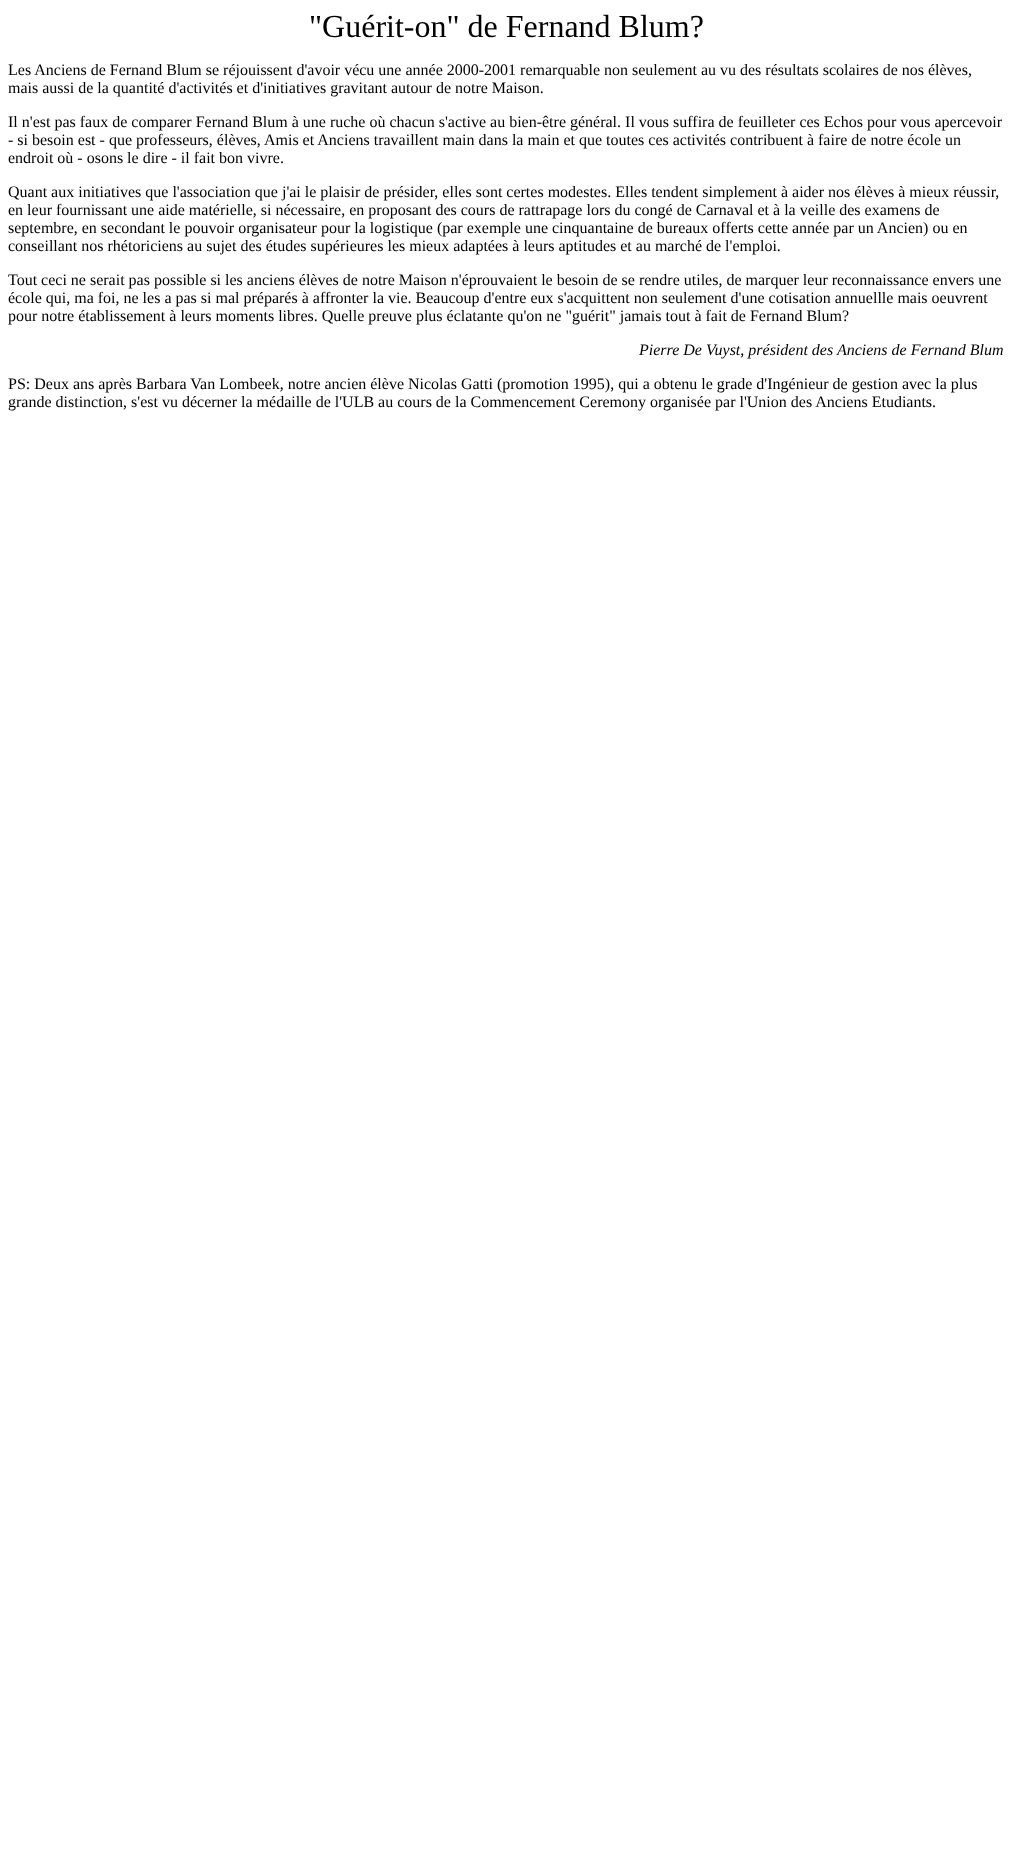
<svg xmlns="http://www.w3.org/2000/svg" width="1012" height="1871">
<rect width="100%" height="100%" fill="#fff"/>
<text x="309" y="37" style="font-family:Liberation Serif;font-size:32px;fill:#000">"Guérit-on" de Fernand Blum?</text>
<text x="8" y="75" style="font-family:Liberation Serif;font-size:16px;fill:#000">Les Anciens de Fernand Blum se réjouissent d'avoir vécu une année 2000-2001 remarquable non seulement au vu des résultats scolaires de nos élèves,</text>
<text x="8" y="93" style="font-family:Liberation Serif;font-size:16px;fill:#000">mais aussi de la quantité d'activités et d'initiatives gravitant autour de notre Maison.</text>
<text x="8" y="127" style="font-family:Liberation Serif;font-size:16px;fill:#000">Il n'est pas faux de comparer Fernand Blum à une ruche où chacun s'active au bien-être général. Il vous suffira de feuilleter ces Echos pour vous apercevoir</text>
<text x="8" y="145" style="font-family:Liberation Serif;font-size:16px;fill:#000">- si besoin est - que professeurs, élèves, Amis et Anciens travaillent main dans la main et que toutes ces activités contribuent à faire de notre école un</text>
<text x="8" y="163" style="font-family:Liberation Serif;font-size:16px;fill:#000">endroit où - osons le dire - il fait bon vivre.</text>
<text x="8" y="197" style="font-family:Liberation Serif;font-size:16px;fill:#000">Quant aux initiatives que l'association que j'ai le plaisir de présider, elles sont certes modestes. Elles tendent simplement à aider nos élèves à mieux réussir,</text>
<text x="8" y="215" style="font-family:Liberation Serif;font-size:16px;fill:#000">en leur fournissant une aide matérielle, si nécessaire, en proposant des cours de rattrapage lors du congé de Carnaval et à la veille des examens de</text>
<text x="8" y="233" style="font-family:Liberation Serif;font-size:16px;fill:#000">septembre, en secondant le pouvoir organisateur pour la logistique (par exemple une cinquantaine de bureaux offerts cette année par un Ancien) ou en</text>
<text x="8" y="251" style="font-family:Liberation Serif;font-size:16px;fill:#000">conseillant nos rhétoriciens au sujet des études supérieures les mieux adaptées à leurs aptitudes et au marché de l'emploi.</text>
<text x="8" y="285" style="font-family:Liberation Serif;font-size:16px;fill:#000">Tout ceci ne serait pas possible si les anciens élèves de notre Maison n'éprouvaient le besoin de se rendre utiles, de marquer leur reconnaissance envers une</text>
<text x="8" y="303" style="font-family:Liberation Serif;font-size:16px;fill:#000">école qui, ma foi, ne les a pas si mal préparés à affronter la vie. Beaucoup d'entre eux s'acquittent non seulement d'une cotisation annuellle mais oeuvrent</text>
<text x="8" y="321" style="font-family:Liberation Serif;font-size:16px;fill:#000">pour notre établissement à leurs moments libres. Quelle preuve plus éclatante qu'on ne "guérit" jamais tout à fait de Fernand Blum?</text>
<text x="639" y="355" style="font-family:Liberation Serif;font-size:16px;font-style:italic;fill:#000">Pierre De Vuyst, président des Anciens de Fernand Blum</text>
<text x="8" y="389" style="font-family:Liberation Serif;font-size:16px;fill:#000">PS: Deux ans après Barbara Van Lombeek, notre ancien élève Nicolas Gatti (promotion 1995), qui a obtenu le grade d'Ingénieur de gestion avec la plus</text>
<text x="8" y="407" style="font-family:Liberation Serif;font-size:16px;fill:#000">grande distinction, s'est vu décerner la médaille de l'ULB au cours de la Commencement Ceremony organisée par l'Union des Anciens Etudiants.</text>
</svg>
